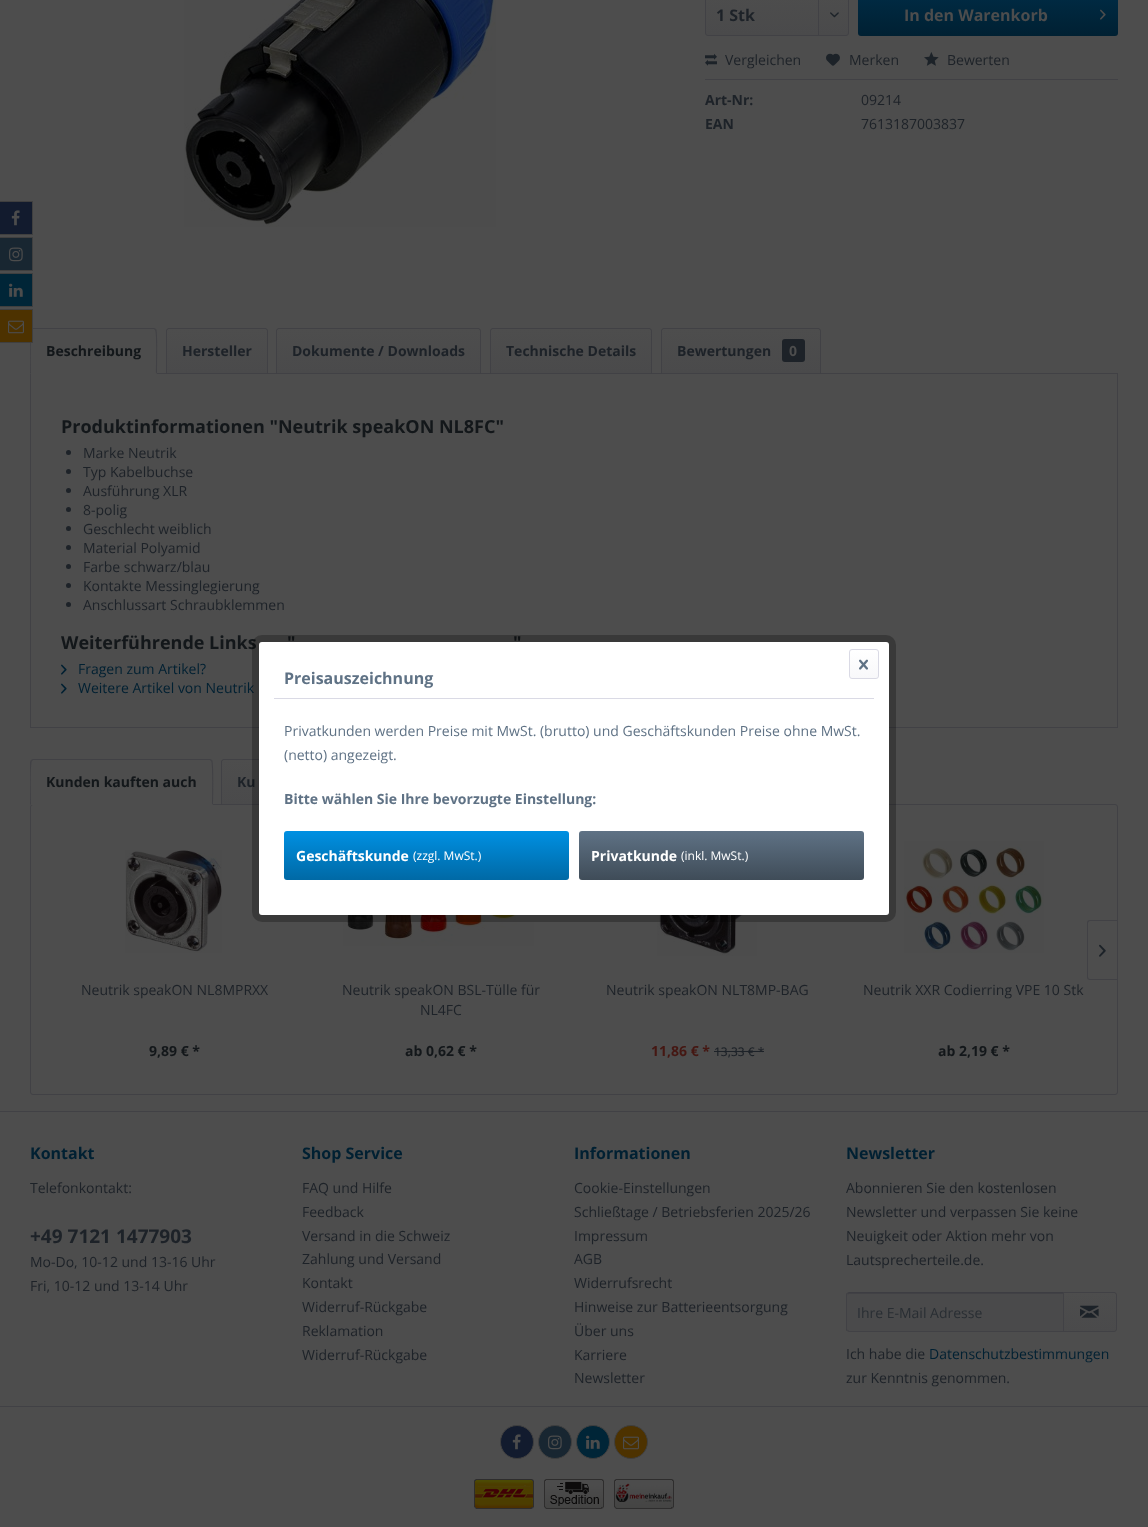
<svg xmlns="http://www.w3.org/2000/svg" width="1148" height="1527">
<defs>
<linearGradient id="g1" gradientUnits="userSpaceOnUse" x1="777" y1="-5" x2="777" y2="35"><stop offset="0" stop-color="#4d4d4d"/><stop offset="1" stop-color="#4a4a4b"/></linearGradient>
<linearGradient id="g2" gradientUnits="userSpaceOnUse" x1="988" y1="-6" x2="988" y2="36"><stop offset="0" stop-color="#002b44"/><stop offset="1" stop-color="#002032"/></linearGradient>
<linearGradient id="g3" gradientUnits="userSpaceOnUse" x1="217" y1="329" x2="217" y2="373"><stop offset="0" stop-color="#4d4d4d"/><stop offset="1" stop-color="#4a4a4b"/></linearGradient>
<linearGradient id="g4" gradientUnits="userSpaceOnUse" x1="379" y1="329" x2="379" y2="373"><stop offset="0" stop-color="#4d4d4d"/><stop offset="1" stop-color="#4a4a4b"/></linearGradient>
<linearGradient id="g5" gradientUnits="userSpaceOnUse" x1="571" y1="329" x2="571" y2="373"><stop offset="0" stop-color="#4d4d4d"/><stop offset="1" stop-color="#4a4a4b"/></linearGradient>
<linearGradient id="g6" gradientUnits="userSpaceOnUse" x1="741" y1="329" x2="741" y2="373"><stop offset="0" stop-color="#4d4d4d"/><stop offset="1" stop-color="#4a4a4b"/></linearGradient>
<linearGradient id="g7" gradientUnits="userSpaceOnUse" x1="377" y1="760" x2="377" y2="804"><stop offset="0" stop-color="#4d4d4d"/><stop offset="1" stop-color="#4a4a4b"/></linearGradient>
<linearGradient id="g8" gradientUnits="userSpaceOnUse" x1="1090" y1="1293" x2="1090" y2="1331"><stop offset="0" stop-color="#4d4d4d"/><stop offset="1" stop-color="#4a4a4b"/></linearGradient>
<linearGradient id="g9" gradientUnits="userSpaceOnUse" x1="864" y1="650" x2="864" y2="678"><stop offset="0" stop-color="#fff"/><stop offset="1" stop-color="#f8f8fa"/></linearGradient>
<linearGradient id="g10" gradientUnits="userSpaceOnUse" x1="427" y1="831" x2="427" y2="880"><stop offset="0" stop-color="#0090e2"/><stop offset="1" stop-color="#0069a5"/></linearGradient>
<linearGradient id="g11" gradientUnits="userSpaceOnUse" x1="722" y1="831" x2="722" y2="880"><stop offset="0" stop-color="#5f7285"/><stop offset="1" stop-color="#3f4c58"/></linearGradient>
</defs>
<rect width="100%" height="100%" fill="#4d4d4d"/>
<rect y="202" width="32" height="32" fill="#121b2e"/>
<rect y="201" width="33" height="1" fill="#3f3f3f"/>
<rect x="32" y="201" width="1" height="34" fill="#3f3f3f"/>
<rect y="234" width="33" height="1" fill="#3f3f3f"/>
<image x="11" y="210" width="9" height="16" href="media/1.png"/>
<rect y="238" width="32" height="32" fill="#182631"/>
<rect y="237" width="33" height="1" fill="#3f3f3f"/>
<rect x="32" y="237" width="1" height="34" fill="#3f3f3f"/>
<rect y="270" width="33" height="1" fill="#3f3f3f"/>
<image x="9" y="247" width="14" height="15" href="media/2.png"/>
<rect y="274" width="32" height="32" fill="#002537"/>
<rect y="273" width="33" height="1" fill="#3f3f3f"/>
<rect x="32" y="273" width="1" height="34" fill="#3f3f3f"/>
<rect y="306" width="33" height="1" fill="#3f3f3f"/>
<image x="9" y="283" width="14" height="14" href="media/3.png"/>
<rect x="30.5" y="373.5" width="1087" height="354" fill="none" stroke="#414145"/>
<path d="M33 328h121c1.5 0 3 1.5 3 3v43h-127v-43c0-1.5 1.5-3 3-3z" fill="#4d4d4d"/>
<path d="M33 328l-2 1l1 1l1-1h121l1 1l1-1l-2-1z" fill="#414145"/>
<path d="M157 374c0-5 1-43-1-45l-1 1c2 1 1 38 1 43z" fill="#414145"/>
<path d="M157 374l-1-1h-125l-1 1z" fill="#4d4d4d"/>
<path d="M30 374l1-1c0-5-1-42 1-43l-1-1l-1 2z" fill="#414145"/>
<rect y="310" width="32" height="32" fill="#4d3200"/>
<rect y="309" width="33" height="1" fill="#3f3f3f"/>
<rect x="32" y="309" width="1" height="34" fill="#3f3f3f"/>
<rect y="342" width="33" height="1" fill="#3f3f3f"/>
<image x="8" y="320" width="16" height="14" href="media/4.png"/>
<image x="184" y="0" width="312" height="227" href="media/5.png"/>
<rect x="706" y="-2" width="142" height="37" rx="2" fill="url(#g1)"/>
<rect x="705.5" y="-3.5" width="143" height="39" rx="2.5" fill="none" stroke="#414145"/>
<text x="716" y="21" style="font-family:Open Sans;font-size:16px;font-weight:bold;fill:#1d2228">1 Stk</text>
<rect x="818" width="1" height="35" fill="#414145"/>
<image x="830" y="12" width="9" height="6" href="media/6.png"/>
<rect x="858" y="-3" width="260" height="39" rx="3" fill="url(#g2)"/>
<text x="904" y="21" style="font-family:Open Sans;font-size:16px;font-weight:bold;fill:#4d4d4d">In den Warenkorb</text>
<image x="1100" y="9" width="6" height="11" href="media/7.png"/>
<rect x="705" y="79" width="413" height="1" fill="#414145"/>
<image x="705" y="53" width="12" height="13" href="media/8.png"/>
<text x="725" y="65" style="font-family:Open Sans;font-size:14px;fill:#1d2228">Vergleichen</text>
<image x="826" y="53" width="14" height="13" href="media/9.png"/>
<text x="849" y="65" style="font-family:Open Sans;font-size:14px;fill:#1d2228">Merken</text>
<image x="924" y="52" width="15" height="14" href="media/10.png"/>
<text x="947" y="65" style="font-family:Open Sans;font-size:14px;fill:#1d2228">Bewerten</text>
<text x="705" y="105" style="font-family:Open Sans;font-size:14px;font-weight:bold;fill:#1d2228">Art-Nr:</text>
<text x="861" y="105" style="font-family:Open Sans;font-size:14px;fill:#1d2228">09214</text>
<text x="705" y="129" style="font-family:Open Sans;font-size:14px;font-weight:bold;fill:#1d2228">EAN</text>
<text x="861" y="129" style="font-family:Open Sans;font-size:14px;fill:#1d2228">7613187003837</text>
<text x="46" y="356" style="font-family:Open Sans;font-size:14px;font-weight:bold;fill:#13171a">Beschreibung</text>
<path d="M169 329h96c1 0 2 1 2 2v42h-100v-42c0-1 1-2 2-2z" fill="url(#g3)"/>
<path d="M169 328.5h96c1.5 0 2.5 1 2.5 2.5v42.5h-101v-42.5c0-1.5 1-2.5 2.5-2.5z" fill="none" stroke="#414145"/>
<text x="182" y="356" style="font-family:Open Sans;font-size:14px;font-weight:bold;fill:#1d2228">Hersteller</text>
<path d="M279 329h199c1 0 2 1 2 2v42h-203v-42c0-1 1-2 2-2z" fill="url(#g4)"/>
<path d="M279 328.5h199c1.5 0 2.5 1 2.5 2.5v42.5h-204v-42.5c0-1.5 1-2.5 2.5-2.5z" fill="none" stroke="#414145"/>
<text x="292" y="356" style="font-family:Open Sans;font-size:14px;font-weight:bold;fill:#1d2228">Dokumente / Downloads</text>
<path d="M493 329h156c1 0 2 1 2 2v42h-160v-42c0-1 1-2 2-2z" fill="url(#g5)"/>
<path d="M493 328.5h156c1.5 0 2.5 1 2.5 2.5v42.5h-161v-42.5c0-1.5 1-2.5 2.5-2.5z" fill="none" stroke="#414145"/>
<text x="506" y="356" style="font-family:Open Sans;font-size:14px;font-weight:bold;fill:#1d2228">Technische Details</text>
<path d="M664 329h154c1 0 2 1 2 2v42h-158v-42c0-1 1-2 2-2z" fill="url(#g6)"/>
<path d="M664 328.5h154c1.5 0 2.5 1 2.5 2.5v42.5h-159v-42.5c0-1.5 1-2.5 2.5-2.5z" fill="none" stroke="#414145"/>
<text x="677" y="356" style="font-family:Open Sans;font-size:14px;font-weight:bold;fill:#1d2228">Bewertungen</text>
<rect x="782" y="339" width="23" height="23" rx="3" fill="#1d2228"/>
<text x="789" y="356" style="font-family:Open Sans;font-size:14px;font-weight:bold;fill:#4d4d4d">0</text>
<text x="61" y="433" style="font-family:Open Sans;font-size:18px;font-weight:bold;fill:#13171a">Produktinformationen "Neutrik speakON NL8FC"</text>
<circle cx="68.5" cy="452.5" r="2.5" fill="#1d2228"/>
<text x="83" y="458" style="font-family:Open Sans;font-size:14px;fill:#1d2228">Marke Neutrik</text>
<circle cx="68.5" cy="471.5" r="2.5" fill="#1d2228"/>
<text x="83" y="477" style="font-family:Open Sans;font-size:14px;fill:#1d2228">Typ Kabelbuchse</text>
<circle cx="68.5" cy="490.5" r="2.5" fill="#1d2228"/>
<text x="83" y="496" style="font-family:Open Sans;font-size:14px;fill:#1d2228">Ausführung XLR</text>
<circle cx="68.5" cy="509.5" r="2.5" fill="#1d2228"/>
<text x="83" y="515" style="font-family:Open Sans;font-size:14px;fill:#1d2228">8-polig</text>
<circle cx="68.5" cy="528.5" r="2.5" fill="#1d2228"/>
<text x="83" y="534" style="font-family:Open Sans;font-size:14px;fill:#1d2228">Geschlecht weiblich</text>
<circle cx="68.5" cy="547.5" r="2.5" fill="#1d2228"/>
<text x="83" y="553" style="font-family:Open Sans;font-size:14px;fill:#1d2228">Material Polyamid</text>
<circle cx="68.5" cy="566.5" r="2.5" fill="#1d2228"/>
<text x="83" y="572" style="font-family:Open Sans;font-size:14px;fill:#1d2228">Farbe schwarz/blau</text>
<circle cx="68.5" cy="585.5" r="2.5" fill="#1d2228"/>
<text x="83" y="591" style="font-family:Open Sans;font-size:14px;fill:#1d2228">Kontakte Messinglegierung</text>
<circle cx="68.5" cy="604.5" r="2.5" fill="#1d2228"/>
<text x="83" y="610" style="font-family:Open Sans;font-size:14px;fill:#1d2228">Anschlussart Schraubklemmen</text>
<text x="61" y="649" style="font-family:Open Sans;font-size:18px;font-weight:bold;fill:#13171a">Weiterführende Links</text>
<text x="287" y="649" style="font-family:Open Sans;font-size:18px;font-weight:bold;fill:#13171a">"</text>
<text x="513" y="649" style="font-family:Open Sans;font-size:18px;font-weight:bold;fill:#13171a">"</text>
<image x="61" y="664" width="6" height="11" href="media/11.png"/>
<text x="78" y="674" style="font-family:Open Sans;font-size:14px;fill:#002032">Fragen zum Artikel?</text>
<image x="61" y="683" width="6" height="11" href="media/11.png"/>
<text x="78" y="693" style="font-family:Open Sans;font-size:14px;fill:#002032">Weitere Artikel von Neutrik</text>
<rect x="30.5" y="804.5" width="1087" height="290" rx="2.5" fill="none" stroke="#414145"/>
<path d="M33 759h177c1.5 0 3 1.5 3 3v43h-183v-43c0-1.5 1.5-3 3-3z" fill="#4d4d4d"/>
<path d="M33 759l-2 1l1 1l1-1h177l1 1l1-1l-2-1z" fill="#414145"/>
<path d="M213 805c0-5 1-43-1-45l-1 1c2 1 1 38 1 43z" fill="#414145"/>
<path d="M213 805l-1-1h-181l-1 1z" fill="#4d4d4d"/>
<path d="M30 805l1-1c0-5-1-42 1-43l-1-1l-1 2z" fill="#414145"/>
<text x="46" y="787" style="font-family:Open Sans;font-size:14px;font-weight:bold;fill:#13171a">Kunden kauften auch</text>
<path d="M224 760h306c1 0 2 1 2 2v42h-310v-42c0-1 1-2 2-2z" fill="url(#g7)"/>
<path d="M224 759.5h306c1.5 0 2.5 1 2.5 2.5v42.5h-311v-42.5c0-1.5 1-2.5 2.5-2.5z" fill="none" stroke="#414145"/>
<text x="237" y="787" style="font-family:Open Sans;font-size:14px;font-weight:bold;fill:#1d2228">Ku</text>
<path d="M1090 920h27v60h-27c-2 0-3-1-3-3v-54c0-2 1-3 3-3zm0 1h27v58h-27c-1 0-2-1-2-2v-54c0-1 1-2 2-2z" fill="#414145" fill-rule="evenodd"/>
<image x="1099" y="944" width="7" height="13" href="media/12.png"/>
<image x="125" y="850" width="97" height="103" href="media/13.png"/>
<text x="81" y="995" style="font-family:Open Sans;font-size:14px;fill:#1d2228">Neutrik speakON NL8MPRXX</text>
<text x="149" y="1056" style="font-family:Open Sans;font-size:14px;font-weight:bold;fill:#13171a">9,89 € *</text>
<image x="343" y="915" width="191" height="31" href="media/14.png"/>
<text x="342" y="995" style="font-family:Open Sans;font-size:14px;fill:#1d2228">Neutrik speakON BSL-Tülle für</text>
<text x="420" y="1015" style="font-family:Open Sans;font-size:14px;fill:#1d2228">NL4FC</text>
<text x="405" y="1056" style="font-family:Open Sans;font-size:14px;font-weight:bold;fill:#13171a">ab 0,62 € *</text>
<image x="657" y="915" width="100" height="41" href="media/15.png"/>
<text x="606" y="995" style="font-family:Open Sans;font-size:14px;fill:#1d2228">Neutrik speakON NLT8MP-BAG</text>
<text x="651" y="1056" style="font-family:Open Sans;font-size:14px;font-weight:bold;fill:#451712">11,86 € *</text>
<text x="714" y="1056" style="font-family:Open Sans;font-size:12px;font-weight:500;fill:#1d2228">13,33 € *</text>
<rect x="714" y="1051" width="50" height="1" fill="#1d2228"/>
<image x="904" y="841" width="140" height="112" href="media/16.png"/>
<text x="863" y="995" style="font-family:Open Sans;font-size:14px;fill:#1d2228">Neutrik XXR Codierring VPE 10 Stk</text>
<text x="938" y="1056" style="font-family:Open Sans;font-size:14px;font-weight:bold;fill:#13171a">ab 2,19 € *</text>
<rect y="1111" width="1148" height="1" fill="#414145"/>
<rect y="1406" width="1148" height="1" fill="#414145"/>
<text x="30" y="1159" style="font-family:Open Sans;font-size:16px;font-weight:bold;fill:#002032">Kontakt</text>
<text x="30" y="1193" style="font-family:Open Sans;font-size:14px;fill:#1d2228">Telefonkontakt:</text>
<text x="30" y="1243" style="font-family:Open Sans;font-size:19px;font-weight:bold;fill:#1d2228">+49 7121 1477903</text>
<text x="30" y="1267" style="font-family:Open Sans;font-size:14px;fill:#1d2228">Mo-Do, 10-12 und 13-16 Uhr</text>
<text x="30" y="1291" style="font-family:Open Sans;font-size:14px;fill:#1d2228">Fri, 10-12 und 13-14 Uhr</text>
<text x="302" y="1159" style="font-family:Open Sans;font-size:16px;font-weight:bold;fill:#002032">Shop Service</text>
<text x="302" y="1193" style="font-family:Open Sans;font-size:14px;fill:#1d2228">FAQ und Hilfe</text>
<text x="302" y="1217" style="font-family:Open Sans;font-size:14px;fill:#1d2228">Feedback</text>
<text x="302" y="1241" style="font-family:Open Sans;font-size:14px;fill:#1d2228">Versand in die Schweiz</text>
<text x="302" y="1264" style="font-family:Open Sans;font-size:14px;fill:#1d2228">Zahlung und Versand</text>
<text x="302" y="1288" style="font-family:Open Sans;font-size:14px;fill:#1d2228">Kontakt</text>
<text x="302" y="1312" style="font-family:Open Sans;font-size:14px;fill:#1d2228">Widerruf-Rückgabe</text>
<text x="302" y="1336" style="font-family:Open Sans;font-size:14px;fill:#1d2228">Reklamation</text>
<text x="302" y="1360" style="font-family:Open Sans;font-size:14px;fill:#1d2228">Widerruf-Rückgabe</text>
<text x="574" y="1159" style="font-family:Open Sans;font-size:16px;font-weight:bold;fill:#002032">Informationen</text>
<text x="574" y="1193" style="font-family:Open Sans;font-size:14px;fill:#1d2228">Cookie-Einstellungen</text>
<text x="574" y="1217" style="font-family:Open Sans;font-size:14px;fill:#1d2228">Schließtage / Betriebsferien 2025/26</text>
<text x="574" y="1241" style="font-family:Open Sans;font-size:14px;fill:#1d2228">Impressum</text>
<text x="574" y="1264" style="font-family:Open Sans;font-size:14px;fill:#1d2228">AGB</text>
<text x="574" y="1288" style="font-family:Open Sans;font-size:14px;fill:#1d2228">Widerrufsrecht</text>
<text x="574" y="1312" style="font-family:Open Sans;font-size:14px;fill:#1d2228">Hinweise zur Batterieentsorgung</text>
<text x="574" y="1336" style="font-family:Open Sans;font-size:14px;fill:#1d2228">Über uns</text>
<text x="574" y="1360" style="font-family:Open Sans;font-size:14px;fill:#1d2228">Karriere</text>
<text x="574" y="1383" style="font-family:Open Sans;font-size:14px;fill:#1d2228">Newsletter</text>
<text x="846" y="1159" style="font-family:Open Sans;font-size:16px;font-weight:bold;fill:#002032">Newsletter</text>
<text x="846" y="1193" style="font-family:Open Sans;font-size:14px;fill:#1d2228">Abonnieren Sie den kostenlosen</text>
<text x="846" y="1217" style="font-family:Open Sans;font-size:14px;fill:#1d2228">Newsletter und verpassen Sie keine</text>
<text x="846" y="1241" style="font-family:Open Sans;font-size:14px;fill:#1d2228">Neuigkeit oder Aktion mehr von</text>
<text x="846" y="1265" style="font-family:Open Sans;font-size:14px;fill:#1d2228">Lautsprecherteile.de.</text>
<path d="M849 1293h214v38h-214c-1 0-2-1-2-2v-34c0-1 1-2 2-2z" fill="#4a4a4b"/>
<path d="M849 1294h214v-1h-214l-1 1l-1 2c0-1 1-2 2-2z" fill="#414145"/>
<path d="M849 1292l-2 1l1 1l1-1h214l1-1z" fill="#3d3d42"/>
<path d="M1064 1332l-1-1h-214l-1-1l-1 1l2 1z" fill="#414145"/>
<path d="M846 1295v34c0 1 0 2 1 2l.5-.5l-.5-1.5v-34l.5-1.5l-.5-.5c-1 0-1 1-1 2z" fill="#414145"/>
<text x="857" y="1318" style="font-family:Open Sans;font-size:14px;fill:#292e33">Ihre E-Mail Adresse</text>
<path d="M1064 1293h50c1 0 2 1 2 2v34c0 1-1 2-2 2h-50z" fill="url(#g8)"/>
<path d="M1063.5 1292.5h50.5c1.5 0 2.5 1 2.5 2.5v34c0 1.5-1 2.5-2.5 2.5h-50.5z" fill="none" stroke="#414145"/>
<image x="1080" y="1305" width="19" height="13" href="media/17.png"/>
<text x="846" y="1359" style="font-family:Open Sans;font-size:14px;fill:#1d2228">Ich habe die</text>
<text x="929" y="1359" style="font-family:Open Sans;font-size:14px;fill:#002032">Datenschutzbestimmungen</text>
<text x="846" y="1383" style="font-family:Open Sans;font-size:14px;fill:#1d2228">zur Kenntnis genommen.</text>
<circle cx="517" cy="1442" r="16.5" fill="#121b2e" stroke="#3f3f3f"/>
<image x="512" y="1434" width="9" height="16" href="media/1.png"/>
<circle cx="555" cy="1442" r="16.5" fill="#182631" stroke="#3f3f3f"/>
<image x="548" y="1435" width="14" height="15" href="media/2.png"/>
<circle cx="593" cy="1442" r="16.5" fill="#002537" stroke="#3f3f3f"/>
<image x="586" y="1435" width="14" height="14" href="media/3.png"/>
<circle cx="631" cy="1442" r="16.5" fill="#4d3200" stroke="#3f3f3f"/>
<image x="623" y="1436" width="16" height="14" href="media/4.png"/>
<image x="474" y="1479" width="60" height="30" href="media/18.png"/>
<image x="544" y="1479" width="60" height="30" href="media/19.png"/>
<image x="614" y="1479" width="60" height="30" href="media/20.png"/>
<rect x="255.5" y="638.5" width="637" height="280" rx="6.5" fill="none" stroke="#00000040" stroke-width="7"/>
<rect x="259" y="642" width="630" height="273" rx="3" fill="#fff"/>
<rect x="274" y="698" width="600" height="1" fill="#dadae5"/>
<text x="284" y="684" style="font-family:Open Sans;font-size:16px;font-weight:bold;fill:#5f7285">Preisauszeichnung</text>
<rect x="850" y="650" width="28" height="28" rx="2" fill="url(#g9)"/>
<rect x="849.5" y="649.5" width="29" height="29" rx="2.5" fill="none" stroke="#dadae5"/>
<image x="859" y="659" width="9" height="11" href="media/21.png"/>
<text x="284" y="736" style="font-family:Open Sans;font-size:14px;fill:#5f7285">Privatkunden werden Preise mit MwSt. (brutto) und Geschäftskunden Preise ohne MwSt.</text>
<text x="284" y="760" style="font-family:Open Sans;font-size:14px;fill:#5f7285">(netto) angezeigt.</text>
<text x="284" y="804" style="font-family:Open Sans;font-size:14px;font-weight:bold;fill:#5f7285">Bitte wählen Sie Ihre bevorzugte Einstellung:</text>
<rect x="284" y="831" width="285" height="49" rx="3" fill="url(#g10)"/>
<text x="296" y="861" style="font-family:Open Sans;font-size:14px;font-weight:bold;fill:#fff">Geschäftskunde</text>
<text x="413" y="860" style="font-family:Open Sans;font-size:12px;fill:#fff">(zzgl. MwSt.)</text>
<rect x="579" y="831" width="285" height="49" rx="3" fill="url(#g11)"/>
<text x="591" y="861" style="font-family:Open Sans;font-size:14px;font-weight:bold;fill:#fff">Privatkunde</text>
<text x="681" y="860" style="font-family:Open Sans;font-size:12px;fill:#fff">(inkl. MwSt.)</text>
</svg>
